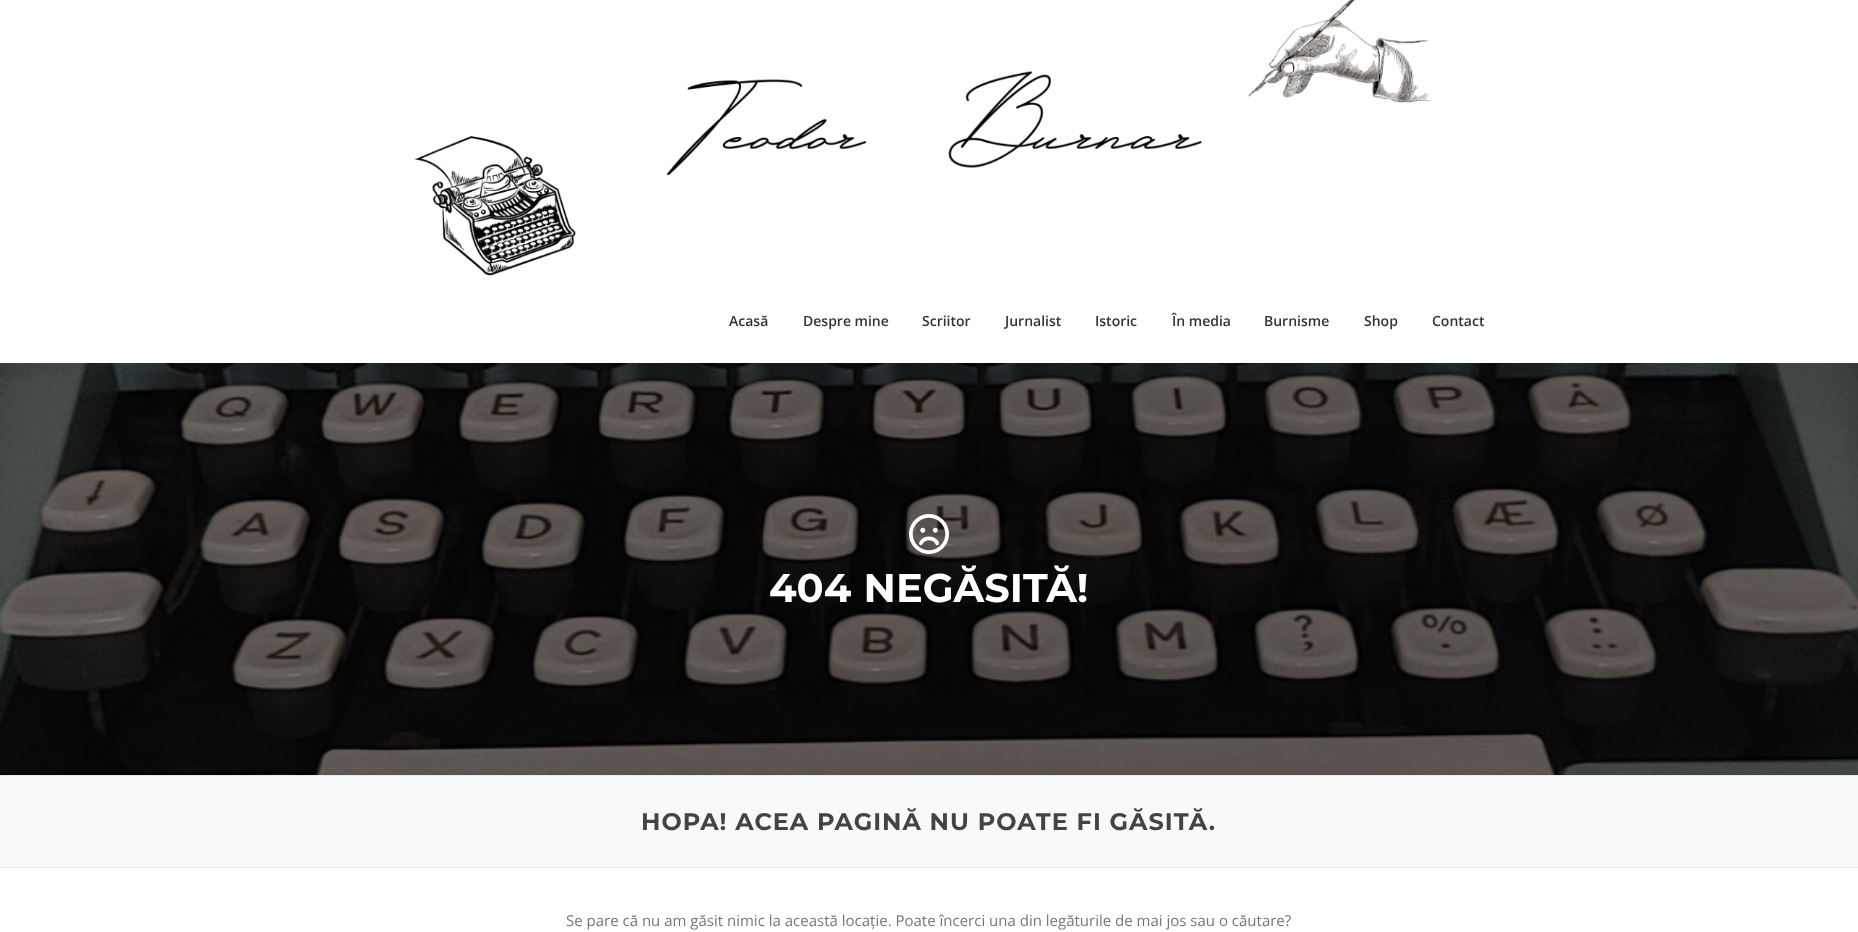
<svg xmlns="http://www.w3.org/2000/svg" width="1858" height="932">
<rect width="100%" height="100%" fill="#fff"/>
<image x="414" y="0" width="1018" height="276" href="media/1.png"/>
<text x="729" y="326" style="font-family:Open Sans;font-size:14px;font-weight:600;fill:#333">Acasă</text>
<text x="803" y="326" style="font-family:Open Sans;font-size:14px;font-weight:600;fill:#333">Despre mine</text>
<text x="922" y="326" style="font-family:Open Sans;font-size:14px;font-weight:600;fill:#333">Scriitor</text>
<text x="1005" y="326" style="font-family:Open Sans;font-size:14px;font-weight:600;fill:#333">Jurnalist</text>
<text x="1095" y="326" style="font-family:Open Sans;font-size:14px;font-weight:600;fill:#333">Istoric</text>
<text x="1172" y="326" style="font-family:Open Sans;font-size:14px;font-weight:600;fill:#333">În media</text>
<text x="1264" y="326" style="font-family:Open Sans;font-size:14px;font-weight:600;fill:#333">Burnisme</text>
<text x="1364" y="326" style="font-family:Open Sans;font-size:14px;font-weight:600;fill:#333">Shop</text>
<text x="1432" y="326" style="font-family:Open Sans;font-size:14px;font-weight:600;fill:#333">Contact</text>
<image x="0" y="363" width="1858" height="412" href="media/2.png"/>
<image x="909" y="514" width="40" height="40" href="media/3.png"/>
<text x="769" y="602" word-spacing="1" style="font-family:Montserrat;font-size:40px;font-weight:bold;fill:#fff">404 NEGĂSITĂ!</text>
<rect y="776" width="1858" height="91" fill="#f8f9f9"/>
<rect y="775" width="1858" height="1" fill="#e9e9e9"/>
<rect y="867" width="1858" height="1" fill="#e9e9e9"/>
<text x="641" y="830" style="font-family:Montserrat;font-size:24px;font-weight:bold;letter-spacing:1px;fill:#444">HOPA! ACEA PAGINĂ NU POATE FI GĂSITĂ.</text>
<text x="566" y="926" style="font-family:Open Sans;font-size:15px;fill:#777">Se pare că nu am găsit nimic la această locație. Poate încerci una din legăturile de mai jos sau o căutare?</text>
</svg>
